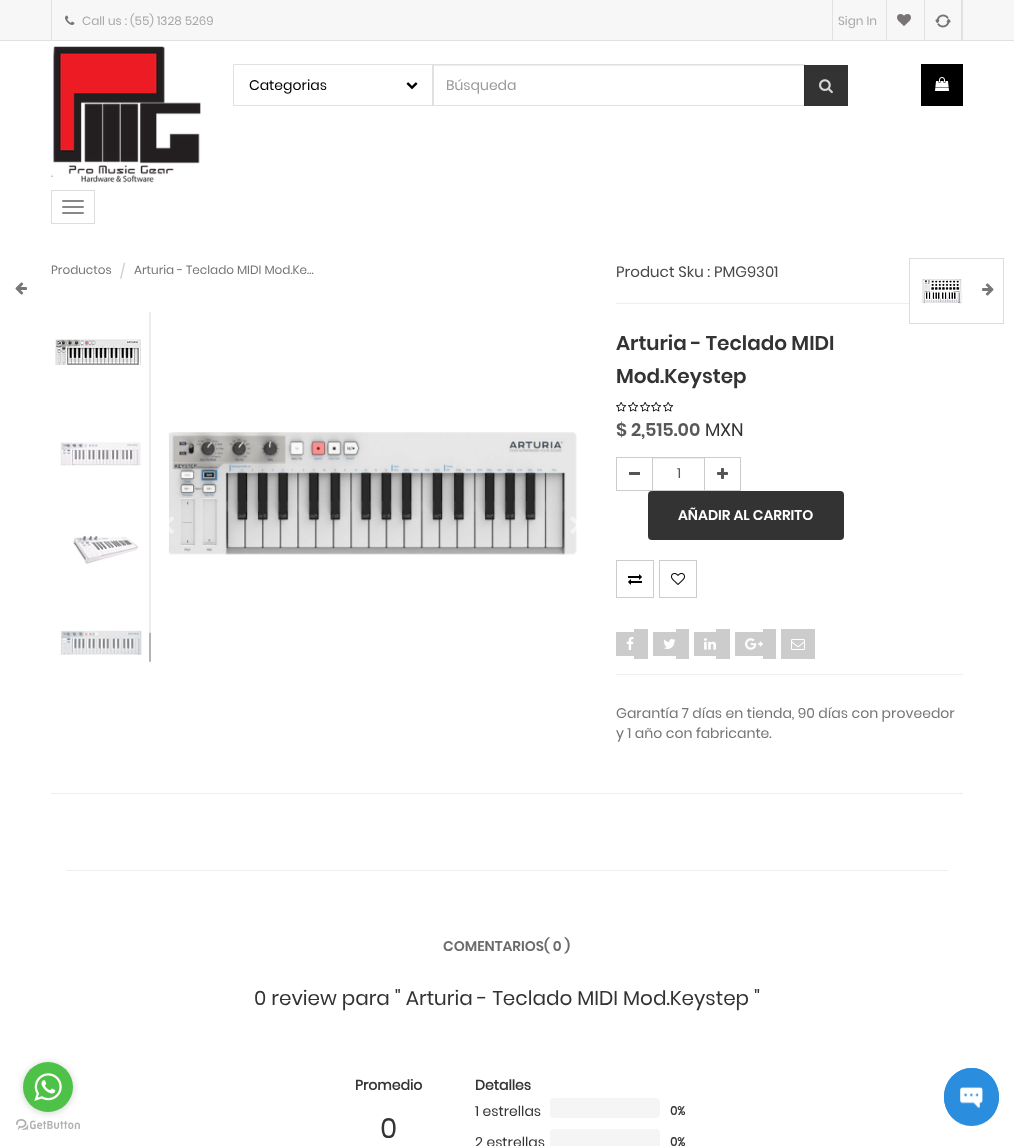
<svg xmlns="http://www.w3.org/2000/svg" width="1014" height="1146">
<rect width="100%" height="100%" fill="#fff"/>
<image x="16" y="1119" width="64" height="11" href="media/2.png"/>
<rect x="23" y="1063" width="50" height="50" rx="25" fill="#88888866" filter="blur(3.5px)"/>
<circle cx="48" cy="1087" r="25" fill="#4dc247"/>
<image x="34" y="1073" width="28" height="28" href="media/1.png"/>
<rect width="1014" height="40" fill="#f7f7f7"/>
<rect y="40" width="1014" height="1" fill="#e1e1e1"/>
<rect x="51" width="1" height="40" fill="#e1e1e1"/>
<image x="65" y="15" width="10" height="10" href="media/3.png"/>
<text x="82" y="25" style="font-family:Poppins;font-size:12px;fill:#a8a8a8">Call us : (55) 1328 5269</text>
<rect x="961" width="2" height="40" fill="#e1e1e1"/>
<rect x="832" width="1" height="40" fill="#e1e1e1"/>
<text x="838" y="25" style="font-family:Poppins;font-size:12px;fill:#a8a8a8">Sign In</text>
<rect x="886" width="1" height="40" fill="#e1e1e1"/>
<image x="897" y="14" width="14" height="12" href="media/4.png"/>
<rect x="924" width="1" height="40" fill="#e1e1e1"/>
<image x="935" y="14" width="16" height="14" href="media/5.png"/>
<image x="51" y="46" width="150" height="137" href="media/6.png"/>
<rect x="233.5" y="64.5" width="199" height="41" fill="none" stroke="#e1e1e1"/>
<text x="249" y="90" style="font-family:Poppins;font-size:14px;fill:#000">Categorias</text>
<image x="406" y="82" width="12" height="8" href="media/7.png"/>
<rect x="434" y="65" width="370" height="1" fill="#ececec"/>
<rect x="433.5" y="64.5" width="371" height="41" fill="none" stroke="#e1e1e1"/>
<text x="446" y="90" style="font-family:Poppins;font-size:14px;fill:#999">Búsqueda</text>
<rect x="804" y="65" width="44" height="41" fill="#000000cc"/>
<image x="819" y="79" width="14" height="15" href="media/8.png"/>
<rect x="921" y="64" width="42" height="42" fill="#000"/>
<image x="935" y="77" width="14" height="14" href="media/9.png"/>
<rect x="51.5" y="190.5" width="43" height="33" fill="none" stroke="#ddd"/>
<rect x="62" y="200" width="22" height="2" rx="1" fill="#888"/>
<rect x="62" y="206" width="22" height="2" rx="1" fill="#888"/>
<rect x="62" y="212" width="22" height="2" rx="1" fill="#888"/>
<image x="15" y="282" width="12" height="13" href="media/10.png"/>
<text x="51" y="274" style="font-family:Poppins;font-size:12px;fill:#757575">Productos</text>
<text x="120" y="276" style="font-family:Poppins;font-size:14px;fill:#ccc">/</text>
<text x="134" y="274" style="font-family:Poppins;font-size:12px;fill:#757575">Arturia - Teclado MIDI Mod.Ke…</text>
<image x="55" y="339" width="86" height="26" href="media/11.png"/>
<image x="60" y="442" width="81" height="24" href="media/12.png"/>
<image x="73" y="535" width="66" height="29" href="media/13.png"/>
<image x="60" y="630" width="82" height="25" href="media/14.png"/>
<rect x="149" y="312" width="2" height="350" rx="1" fill="#b3b3b3"/>
<rect x="148" y="312" width="4" height="321" rx="2" fill="#ffffffbf"/>
<image x="168" y="432" width="409" height="123" href="media/15.png"/>
<image x="169" y="516" width="5" height="18" href="media/16.png"/>
<image x="570" y="516" width="7" height="18" href="media/17.png"/>
<text x="616" y="277" style="font-family:Poppins;font-size:15px;fill:#484848">Product Sku : PMG9301</text>
<rect x="616" y="303" width="293" height="1" fill="#eee"/>
<text x="616" y="350" style="font-family:Poppins;font-size:20px;font-weight:600;fill:#333">Arturia - Teclado MIDI</text>
<text x="616" y="383" style="font-family:Poppins;font-size:20px;font-weight:600;fill:#333">Mod.Keystep</text>
<image x="616" y="401" width="11" height="11" href="media/18.png"/>
<image x="628" y="401" width="11" height="11" href="media/18.png"/>
<image x="640" y="401" width="11" height="11" href="media/18.png"/>
<image x="651" y="401" width="11" height="11" href="media/18.png"/>
<image x="663" y="401" width="11" height="11" href="media/18.png"/>
<text x="616" y="436" style="font-family:Poppins;font-size:18px;font-weight:600;fill:#585858">$ 2,515.00</text>
<text x="705" y="436" style="font-family:Poppins;font-size:18px;fill:#333">MXN</text>
<rect x="616" y="457" width="36" height="1" fill="#ccc"/>
<rect x="616" y="490" width="36" height="1" fill="#ccc"/>
<rect x="616" y="457" width="1" height="34" fill="#ccc"/>
<rect x="629" y="472" width="11" height="3" fill="#555"/>
<rect x="653" y="458" width="51" height="1" fill="#ececec"/>
<rect x="652.5" y="457.5" width="52" height="33" fill="none" stroke="#ccc"/>
<text x="677" y="478" style="font-family:Poppins;font-size:14px;fill:#585858">1</text>
<rect x="705" y="457" width="36" height="1" fill="#ccc"/>
<rect x="740" y="457" width="1" height="34" fill="#ccc"/>
<rect x="705" y="490" width="36" height="1" fill="#ccc"/>
<image x="717" y="468" width="11" height="11" href="media/19.png"/>
<rect x="648" y="491" width="196" height="49" rx="4" fill="#333"/>
<text x="678" y="520" style="font-family:Poppins;font-size:14px;font-weight:600;fill:#fff">AÑADIR AL CARRITO</text>
<rect x="616.5" y="560.5" width="37" height="37" fill="none" stroke="#ccc"/>
<image x="628" y="574" width="14" height="11" href="media/20.png"/>
<rect x="659.5" y="560.5" width="37" height="37" fill="none" stroke="#ccc"/>
<image x="671" y="573" width="14" height="12" href="media/21.png"/>
<rect x="616" y="632" width="18" height="24" fill="#ccc"/>
<rect x="634" y="629" width="14" height="30" fill="#ccc"/>
<image x="626" y="637" width="8" height="13" href="media/22.png"/>
<rect x="653" y="632" width="23" height="24" fill="#ccc"/>
<rect x="676" y="629" width="13" height="30" fill="#ccc"/>
<image x="663" y="639" width="13" height="10" href="media/23.png"/>
<rect x="694" y="632" width="22" height="24" fill="#ccc"/>
<rect x="716" y="629" width="14" height="30" fill="#ccc"/>
<image x="704" y="638" width="12" height="12" href="media/24.png"/>
<rect x="735" y="632" width="28" height="24" fill="#ccc"/>
<rect x="763" y="629" width="13" height="30" fill="#ccc"/>
<image x="745" y="638" width="18" height="12" href="media/25.png"/>
<rect x="781" y="629" width="34" height="30" fill="#ccc"/>
<image x="791" y="639" width="14" height="11" href="media/26.png"/>
<rect x="616" y="674" width="347" height="1" fill="#eee"/>
<text x="616" y="718" style="font-family:Poppins;font-size:14px;fill:#757575">Garantía 7 días en tienda, 90 días con proveedor</text>
<text x="616" y="738" style="font-family:Poppins;font-size:14px;fill:#757575">y 1 año con fabricante.</text>
<rect x="909.5" y="258.5" width="94" height="65" fill="none" stroke="#ddd"/>
<image x="922" y="279" width="40" height="25" href="media/27.png"/>
<image x="982" y="283" width="12" height="13" href="media/28.png"/>
<rect x="51" y="793" width="912" height="1" fill="#eee"/>
<rect x="66" y="870" width="882" height="1" fill="#eee"/>
<text x="443" y="951" style="font-family:Poppins;font-size:14px;font-weight:600;fill:#6c6b6b">COMENTARIOS( 0 )</text>
<text x="254" y="1005" style="font-family:Poppins;font-size:20px;fill:#333">0 review para " Arturia - Teclado MIDI Mod.Keystep "</text>
<text x="355" y="1090" style="font-family:Poppins;font-size:14px;font-weight:bold;fill:#333">Promedio</text>
<text x="380" y="1138" style="font-family:Poppins;font-size:28px;fill:#333">0</text>
<text x="475" y="1090" style="font-family:Poppins;font-size:14px;font-weight:bold;fill:#333">Detalles</text>
<text x="475" y="1116" style="font-family:Poppins;font-size:14px;fill:#333">1 estrellas</text>
<rect x="550" y="1098" width="110" height="20" rx="4" fill="#f5f5f5"/>
<text x="670" y="1115" style="font-family:Poppins;font-size:12px;font-weight:bold;fill:#333">0%</text>
<text x="475" y="1147" style="font-family:Poppins;font-size:14px;fill:#333">2 estrellas</text>
<rect x="550" y="1129" width="110" height="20" rx="4" fill="#f5f5f5"/>
<text x="670" y="1146" style="font-family:Poppins;font-size:12px;font-weight:bold;fill:#333">0%</text>
<ellipse cx="971.5" cy="1097" rx="27.5" ry="29" fill="#2a8dde"/>
<path d="M972 1068c15 0 27 13 27 29c0 16-12 29-27 29c-16 0-28-13-28-29c0-16 12-29 28-29zm0 1c14 0 26 13 26 28c0 16-12 29-26 29c-15 0-27-13-27-29c0-15 12-28 27-28z" fill="#2a8dde" fill-rule="evenodd"/>
<image x="960" y="1087" width="23" height="21" href="media/29.png"/>
</svg>
